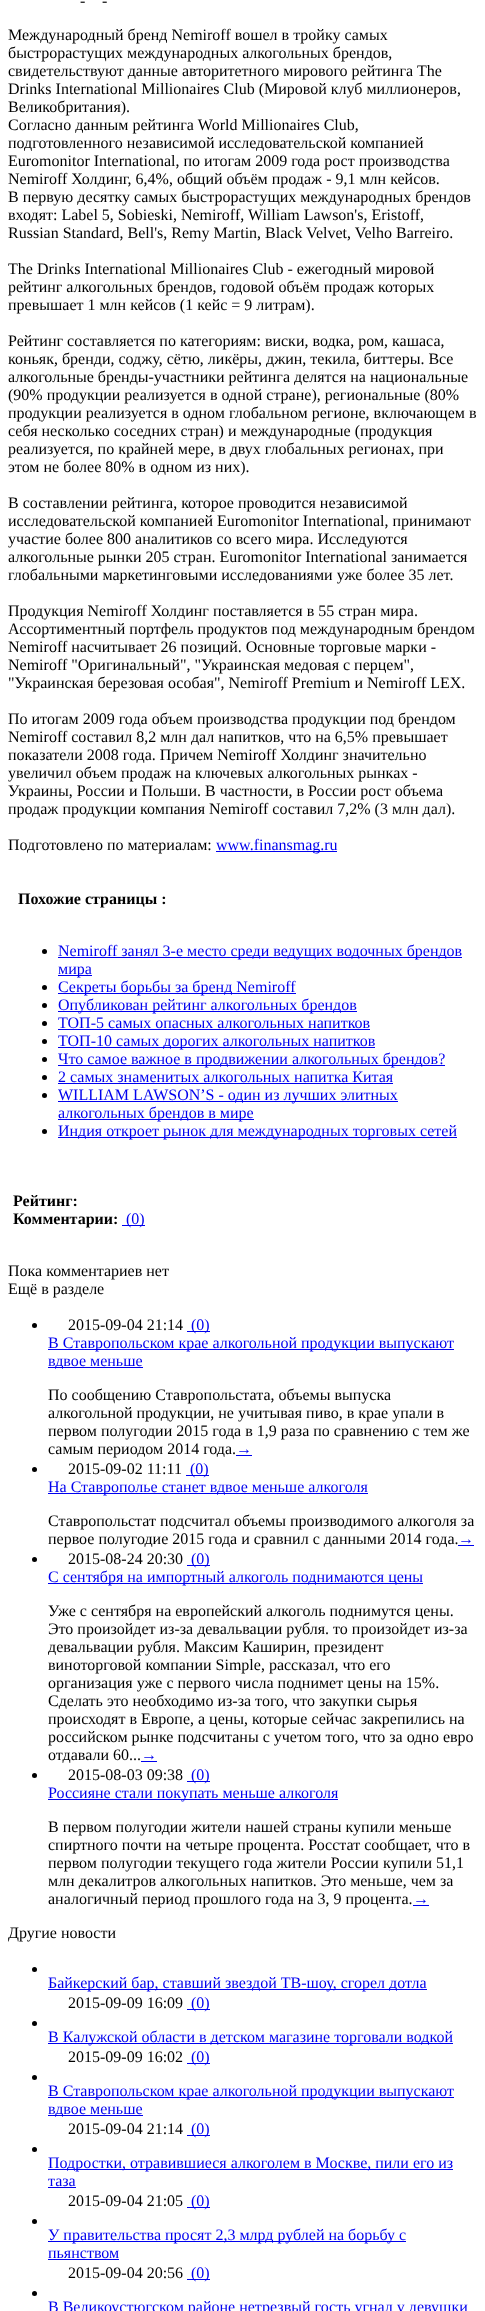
<svg xmlns="http://www.w3.org/2000/svg" width="485" height="2311">
<rect width="100%" height="100%" fill="#fff"/>
<text x="80" y="6" style="font-family:Liberation Serif;font-size:16px;fill:#000">-</text>
<text x="102" y="6" style="font-family:Liberation Serif;font-size:16px;fill:#000">-</text>
<text x="8" y="40" style="font-family:Liberation Serif;font-size:16px;fill:#000">Международный бренд Nemiroff вошел в тройку самых</text>
<text x="8" y="58" style="font-family:Liberation Serif;font-size:16px;fill:#000">быстрорастущих международных алкогольных брендов,</text>
<text x="8" y="76" style="font-family:Liberation Serif;font-size:16px;fill:#000">свидетельствуют данные авторитетного мирового рейтинга The</text>
<text x="8" y="94" style="font-family:Liberation Serif;font-size:16px;fill:#000">Drinks International Millionaires Club (Мировой клуб миллионеров,</text>
<text x="8" y="112" style="font-family:Liberation Serif;font-size:16px;fill:#000">Великобритания).</text>
<text x="8" y="130" style="font-family:Liberation Serif;font-size:16px;fill:#000">Согласно данным рейтинга World Millionaires Club,</text>
<text x="8" y="148" style="font-family:Liberation Serif;font-size:16px;fill:#000">подготовленного независимой исследовательской компанией</text>
<text x="8" y="166" style="font-family:Liberation Serif;font-size:16px;fill:#000">Euromonitor International, по итогам 2009 года рост производства</text>
<text x="8" y="184" style="font-family:Liberation Serif;font-size:16px;fill:#000">Nemiroff Холдинг, 6,4%, общий объём продаж - 9,1 млн кейсов.</text>
<text x="8" y="202" style="font-family:Liberation Serif;font-size:16px;fill:#000">В первую десятку самых быстрорастущих международных брендов</text>
<text x="8" y="220" style="font-family:Liberation Serif;font-size:16px;fill:#000">входят: Label 5, Sobieski, Nemiroff, William Lawson's, Eristoff,</text>
<text x="8" y="238" style="font-family:Liberation Serif;font-size:16px;fill:#000">Russian Standard, Bell's, Remy Martin, Black Velvet, Velho Barreiro.</text>
<text x="8" y="274" style="font-family:Liberation Serif;font-size:16px;fill:#000">The Drinks International Millionaires Club - ежегодный мировой</text>
<text x="8" y="292" style="font-family:Liberation Serif;font-size:16px;fill:#000">рейтинг алкогольных брендов, годовой объём продаж которых</text>
<text x="8" y="310" style="font-family:Liberation Serif;font-size:16px;fill:#000">превышает 1 млн кейсов (1 кейс = 9 литрам).</text>
<text x="8" y="346" style="font-family:Liberation Serif;font-size:16px;fill:#000">Рейтинг составляется по категориям: виски, водка, ром, кашаса,</text>
<text x="8" y="364" style="font-family:Liberation Serif;font-size:16px;fill:#000">коньяк, бренди, соджу, сётю, ликёры, джин, текила, биттеры. Все</text>
<text x="8" y="382" style="font-family:Liberation Serif;font-size:16px;fill:#000">алкогольные бренды-участники рейтинга делятся на национальные</text>
<text x="8" y="400" style="font-family:Liberation Serif;font-size:16px;fill:#000">(90% продукции реализуется в одной стране), региональные (80%</text>
<text x="8" y="418" style="font-family:Liberation Serif;font-size:16px;fill:#000">продукции реализуется в одном глобальном регионе, включающем в</text>
<text x="8" y="436" style="font-family:Liberation Serif;font-size:16px;fill:#000">себя несколько соседних стран) и международные (продукция</text>
<text x="8" y="454" style="font-family:Liberation Serif;font-size:16px;fill:#000">реализуется, по крайней мере, в двух глобальных регионах, при</text>
<text x="8" y="472" style="font-family:Liberation Serif;font-size:16px;fill:#000">этом не более 80% в одном из них).</text>
<text x="8" y="508" style="font-family:Liberation Serif;font-size:16px;fill:#000">В составлении рейтинга, которое проводится независимой</text>
<text x="8" y="526" style="font-family:Liberation Serif;font-size:16px;fill:#000">исследовательской компанией Euromonitor International, принимают</text>
<text x="8" y="544" style="font-family:Liberation Serif;font-size:16px;fill:#000">участие более 800 аналитиков со всего мира. Исследуются</text>
<text x="8" y="562" style="font-family:Liberation Serif;font-size:16px;fill:#000">алкогольные рынки 205 стран. Euromonitor International занимается</text>
<text x="8" y="580" style="font-family:Liberation Serif;font-size:16px;fill:#000">глобальными маркетинговыми исследованиями уже более 35 лет.</text>
<text x="8" y="616" style="font-family:Liberation Serif;font-size:16px;fill:#000">Продукция Nemiroff Холдинг поставляется в 55 стран мира.</text>
<text x="8" y="634" style="font-family:Liberation Serif;font-size:16px;fill:#000">Ассортиментный портфель продуктов под международным брендом</text>
<text x="8" y="652" style="font-family:Liberation Serif;font-size:16px;fill:#000">Nemіroff насчитывает 26 позиций. Основные торговые марки -</text>
<text x="8" y="670" style="font-family:Liberation Serif;font-size:16px;fill:#000">Nemiroff "Оригинальный", "Украинская медовая с перцем",</text>
<text x="8" y="688" style="font-family:Liberation Serif;font-size:16px;fill:#000">"Украинская березовая особая", Nemiroff Premium и Nemiroff LEX.</text>
<text x="8" y="724" style="font-family:Liberation Serif;font-size:16px;fill:#000">По итогам 2009 года объем производства продукции под брендом</text>
<text x="8" y="742" style="font-family:Liberation Serif;font-size:16px;fill:#000">Nemiroff составил 8,2 млн дал напитков, что на 6,5% превышает</text>
<text x="8" y="760" style="font-family:Liberation Serif;font-size:16px;fill:#000">показатели 2008 года. Причем Nemiroff Холдинг значительно</text>
<text x="8" y="778" style="font-family:Liberation Serif;font-size:16px;fill:#000">увеличил объем продаж на ключевых алкогольных рынках -</text>
<text x="8" y="796" style="font-family:Liberation Serif;font-size:16px;fill:#000">Украины, России и Польши. В частности, в России рост объема</text>
<text x="8" y="814" style="font-family:Liberation Serif;font-size:16px;fill:#000">продаж продукции компания Nemiroff составил 7,2% (3 млн дал).</text>
<text x="8" y="850" style="font-family:Liberation Serif;font-size:16px;fill:#000">Подготовлено по материалам:</text>
<rect x="216" y="851" width="121" height="1" fill="#00e"/>
<text x="216" y="850" style="font-family:Liberation Serif;font-size:16px;fill:#00e">www.finansmag.ru</text>
<text x="18" y="904" style="font-family:Liberation Serif;font-size:16px;font-weight:bold;fill:#000">Похожие страницы :</text>
<circle cx="44.5" cy="951.5" r="2.5" fill="#000"/>
<rect x="58" y="957" width="404" height="1" fill="#00e"/>
<text x="58" y="956" style="font-family:Liberation Serif;font-size:16px;fill:#00e">Nemiroff занял 3-е место среди ведущих водочных брендов</text>
<rect x="58" y="975" width="34" height="1" fill="#00e"/>
<text x="58" y="974" style="font-family:Liberation Serif;font-size:16px;fill:#00e">мира</text>
<circle cx="44.5" cy="987.5" r="2.5" fill="#000"/>
<rect x="58" y="993" width="238" height="1" fill="#00e"/>
<text x="58" y="992" style="font-family:Liberation Serif;font-size:16px;fill:#00e">Секреты борьбы за бренд Nemiroff</text>
<circle cx="44.5" cy="1005.5" r="2.5" fill="#000"/>
<rect x="58" y="1011" width="299" height="1" fill="#00e"/>
<text x="58" y="1010" style="font-family:Liberation Serif;font-size:16px;fill:#00e">Опубликован рейтинг алкогольных брендов</text>
<circle cx="44.5" cy="1023.5" r="2.5" fill="#000"/>
<text x="58" y="1028" style="font-family:Liberation Serif;font-size:16px;fill:#00e">ТОП-5 самых опасных алкогольных напитков</text>
<rect x="58" y="1029" width="312" height="1" fill="#00e"/>
<circle cx="44.5" cy="1041.5" r="2.5" fill="#000"/>
<rect x="58" y="1047" width="317" height="1" fill="#00e"/>
<text x="58" y="1046" style="font-family:Liberation Serif;font-size:16px;fill:#00e">ТОП-10 самых дорогих алкогольных напитков</text>
<circle cx="44.5" cy="1059.5" r="2.5" fill="#000"/>
<rect x="58" y="1065" width="387" height="1" fill="#00e"/>
<text x="58" y="1064" style="font-family:Liberation Serif;font-size:16px;fill:#00e">Что самое важное в продвижении алкогольных брендов?</text>
<circle cx="44.5" cy="1077.5" r="2.5" fill="#000"/>
<text x="58" y="1082" style="font-family:Liberation Serif;font-size:16px;fill:#00e">2 самых знаменитых алкогольных напитка Китая</text>
<rect x="58" y="1083" width="335" height="1" fill="#00e"/>
<circle cx="44.5" cy="1095.5" r="2.5" fill="#000"/>
<rect x="58" y="1101" width="340" height="1" fill="#00e"/>
<text x="58" y="1100" style="font-family:Liberation Serif;font-size:16px;fill:#00e">WILLIAM LAWSON’S - один из лучших элитных</text>
<rect x="58" y="1119" width="196" height="1" fill="#00e"/>
<text x="58" y="1118" style="font-family:Liberation Serif;font-size:16px;fill:#00e">алкогольных брендов в мире</text>
<circle cx="44.5" cy="1131.5" r="2.5" fill="#000"/>
<rect x="58" y="1137" width="399" height="1" fill="#00e"/>
<text x="58" y="1136" style="font-family:Liberation Serif;font-size:16px;fill:#00e">Индия откроет рынок для международных торговых сетей</text>
<text x="13" y="1206" style="font-family:Liberation Serif;font-size:16px;font-weight:bold;fill:#000">Рейтинг:</text>
<text x="13" y="1224" style="font-family:Liberation Serif;font-size:16px;font-weight:bold;fill:#000">Комментарии:</text>
<rect x="122" y="1225" width="23" height="1" fill="#00e"/>
<text x="126" y="1224" style="font-family:Liberation Serif;font-size:16px;fill:#00e">(0)</text>
<text x="8" y="1276" style="font-family:Liberation Serif;font-size:16px;fill:#000">Пока комментариев нет</text>
<text x="8" y="1294" style="font-family:Liberation Serif;font-size:16px;fill:#000">Ещё в разделе</text>
<circle cx="34.5" cy="1325.5" r="2.5" fill="#000"/>
<text x="68" y="1330" style="font-family:Liberation Serif;font-size:16px;fill:#000">2015-09-04 21:14</text>
<rect x="187" y="1331" width="23" height="1" fill="#00e"/>
<text x="191" y="1330" style="font-family:Liberation Serif;font-size:16px;fill:#00e">(0)</text>
<rect x="48" y="1349" width="406" height="1" fill="#00e"/>
<text x="48" y="1348" style="font-family:Liberation Serif;font-size:16px;fill:#00e">В Ставропольском крае алкогольной продукции выпускают</text>
<rect x="48" y="1367" width="95" height="1" fill="#00e"/>
<text x="48" y="1366" style="font-family:Liberation Serif;font-size:16px;fill:#00e">вдвое меньше</text>
<text x="48" y="1400" style="font-family:Liberation Serif;font-size:16px;fill:#000">По сообщению Ставропольстата, объемы выпуска</text>
<text x="48" y="1418" style="font-family:Liberation Serif;font-size:16px;fill:#000">алкогольной продукции, не учитывая пиво, в крае упали в</text>
<text x="48" y="1436" style="font-family:Liberation Serif;font-size:16px;fill:#000">первом полугодии 2015 года в 1,9 раза по сравнению с тем же</text>
<text x="48" y="1454" style="font-family:Liberation Serif;font-size:16px;fill:#000">самым периодом 2014 года.</text>
<text x="236" y="1454" style="font-family:Liberation Serif;font-size:16px;fill:#00e">→</text>
<rect x="236" y="1455" width="16" height="1" fill="#00e"/>
<circle cx="34.5" cy="1469.5" r="2.5" fill="#000"/>
<text x="68" y="1474" style="font-family:Liberation Serif;font-size:16px;fill:#000">2015-09-02 11:11</text>
<rect x="186" y="1475" width="23" height="1" fill="#00e"/>
<text x="190" y="1474" style="font-family:Liberation Serif;font-size:16px;fill:#00e">(0)</text>
<rect x="48" y="1493" width="320" height="1" fill="#00e"/>
<text x="48" y="1492" style="font-family:Liberation Serif;font-size:16px;fill:#00e">На Ставрополье станет вдвое меньше алкоголя</text>
<text x="48" y="1526" style="font-family:Liberation Serif;font-size:16px;fill:#000">Ставропольстат подсчитал объемы производимого алкоголя за</text>
<text x="48" y="1544" style="font-family:Liberation Serif;font-size:16px;fill:#000">первое полугодие 2015 года и сравнил с данными 2014 года.</text>
<text x="458" y="1544" style="font-family:Liberation Serif;font-size:16px;fill:#00e">→</text>
<rect x="458" y="1545" width="16" height="1" fill="#00e"/>
<circle cx="34.5" cy="1559.5" r="2.5" fill="#000"/>
<text x="68" y="1564" style="font-family:Liberation Serif;font-size:16px;fill:#000">2015-08-24 20:30</text>
<rect x="187" y="1565" width="23" height="1" fill="#00e"/>
<text x="191" y="1564" style="font-family:Liberation Serif;font-size:16px;fill:#00e">(0)</text>
<rect x="48" y="1583" width="375" height="1" fill="#00e"/>
<text x="48" y="1582" style="font-family:Liberation Serif;font-size:16px;fill:#00e">C сентября на импортный алкоголь поднимаются цены</text>
<text x="48" y="1616" style="font-family:Liberation Serif;font-size:16px;fill:#000">Уже с сентября на европейский алкоголь поднимутся цены.</text>
<text x="48" y="1634" style="font-family:Liberation Serif;font-size:16px;fill:#000">Это произойдет из-за девальвации рубля. то произойдет из-за</text>
<text x="48" y="1652" style="font-family:Liberation Serif;font-size:16px;fill:#000">девальвации рубля. Максим Каширин, президент</text>
<text x="48" y="1670" style="font-family:Liberation Serif;font-size:16px;fill:#000">виноторговой компании Simple, рассказал, что его</text>
<text x="48" y="1688" style="font-family:Liberation Serif;font-size:16px;fill:#000">организация уже с первого числа поднимет цены на 15%.</text>
<text x="48" y="1706" style="font-family:Liberation Serif;font-size:16px;fill:#000">Сделать это необходимо из-за того, что закупки сырья</text>
<text x="48" y="1724" style="font-family:Liberation Serif;font-size:16px;fill:#000">происходят в Европе, а цены, которые сейчас закрепились на</text>
<text x="48" y="1742" style="font-family:Liberation Serif;font-size:16px;fill:#000">российском рынке подсчитаны с учетом того, что за одно евро</text>
<text x="48" y="1760" style="font-family:Liberation Serif;font-size:16px;fill:#000">отдавали 60...</text>
<text x="141" y="1760" style="font-family:Liberation Serif;font-size:16px;fill:#00e">→</text>
<rect x="141" y="1761" width="16" height="1" fill="#00e"/>
<circle cx="34.5" cy="1775.5" r="2.5" fill="#000"/>
<text x="68" y="1780" style="font-family:Liberation Serif;font-size:16px;fill:#000">2015-08-03 09:38</text>
<rect x="187" y="1781" width="23" height="1" fill="#00e"/>
<text x="191" y="1780" style="font-family:Liberation Serif;font-size:16px;fill:#00e">(0)</text>
<rect x="48" y="1799" width="290" height="1" fill="#00e"/>
<text x="48" y="1798" style="font-family:Liberation Serif;font-size:16px;fill:#00e">Россияне стали покупать меньше алкоголя</text>
<text x="48" y="1832" style="font-family:Liberation Serif;font-size:16px;fill:#000">В первом полугодии жители нашей страны купили меньше</text>
<text x="48" y="1850" style="font-family:Liberation Serif;font-size:16px;fill:#000">спиртного почти на четыре процента. Росстат сообщает, что в</text>
<text x="48" y="1868" style="font-family:Liberation Serif;font-size:16px;fill:#000">первом полугодии текущего года жители России купили 51,1</text>
<text x="48" y="1886" style="font-family:Liberation Serif;font-size:16px;fill:#000">млн декалитров алкогольных напитков. Это меньше, чем за</text>
<text x="48" y="1904" style="font-family:Liberation Serif;font-size:16px;fill:#000">аналогичный период прошлого года на 3, 9 процента.</text>
<text x="413" y="1904" style="font-family:Liberation Serif;font-size:16px;fill:#00e">→</text>
<rect x="413" y="1905" width="16" height="1" fill="#00e"/>
<text x="8" y="1938" style="font-family:Liberation Serif;font-size:16px;fill:#000">Другие новости</text>
<circle cx="34.5" cy="1969.5" r="2.5" fill="#000"/>
<rect x="48" y="1989" width="379" height="1" fill="#00e"/>
<text x="48" y="1988" style="font-family:Liberation Serif;font-size:16px;fill:#00e">Байкерский бар, ставший звездой ТВ-шоу, сгорел дотла</text>
<text x="68" y="2008" style="font-family:Liberation Serif;font-size:16px;fill:#000">2015-09-09 16:09</text>
<rect x="187" y="2009" width="23" height="1" fill="#00e"/>
<text x="191" y="2008" style="font-family:Liberation Serif;font-size:16px;fill:#00e">(0)</text>
<circle cx="34.5" cy="2023.5" r="2.5" fill="#000"/>
<rect x="48" y="2043" width="405" height="1" fill="#00e"/>
<text x="48" y="2042" style="font-family:Liberation Serif;font-size:16px;fill:#00e">В Калужской области в детском магазине торговали водкой</text>
<text x="68" y="2062" style="font-family:Liberation Serif;font-size:16px;fill:#000">2015-09-09 16:02</text>
<rect x="187" y="2063" width="23" height="1" fill="#00e"/>
<text x="191" y="2062" style="font-family:Liberation Serif;font-size:16px;fill:#00e">(0)</text>
<circle cx="34.5" cy="2077.5" r="2.5" fill="#000"/>
<rect x="48" y="2097" width="406" height="1" fill="#00e"/>
<text x="48" y="2096" style="font-family:Liberation Serif;font-size:16px;fill:#00e">В Ставропольском крае алкогольной продукции выпускают</text>
<rect x="48" y="2115" width="95" height="1" fill="#00e"/>
<text x="48" y="2114" style="font-family:Liberation Serif;font-size:16px;fill:#00e">вдвое меньше</text>
<text x="68" y="2134" style="font-family:Liberation Serif;font-size:16px;fill:#000">2015-09-04 21:14</text>
<rect x="187" y="2135" width="23" height="1" fill="#00e"/>
<text x="191" y="2134" style="font-family:Liberation Serif;font-size:16px;fill:#00e">(0)</text>
<circle cx="34.5" cy="2149.5" r="2.5" fill="#000"/>
<rect x="48" y="2169" width="405" height="1" fill="#00e"/>
<text x="48" y="2168" style="font-family:Liberation Serif;font-size:16px;fill:#00e">Подростки, отравившиеся алкоголем в Москве, пили его из</text>
<text x="48" y="2186" style="font-family:Liberation Serif;font-size:16px;fill:#00e">таза</text>
<rect x="48" y="2187" width="28" height="1" fill="#00e"/>
<text x="68" y="2206" style="font-family:Liberation Serif;font-size:16px;fill:#000">2015-09-04 21:05</text>
<rect x="187" y="2207" width="23" height="1" fill="#00e"/>
<text x="191" y="2206" style="font-family:Liberation Serif;font-size:16px;fill:#00e">(0)</text>
<circle cx="34.5" cy="2221.5" r="2.5" fill="#000"/>
<rect x="48" y="2241" width="358" height="1" fill="#00e"/>
<text x="48" y="2240" style="font-family:Liberation Serif;font-size:16px;fill:#00e">У правительства просят 2,3 млрд рублей на борьбу с</text>
<text x="48" y="2258" style="font-family:Liberation Serif;font-size:16px;fill:#00e">пьянством</text>
<rect x="48" y="2259" width="71" height="1" fill="#00e"/>
<text x="68" y="2278" style="font-family:Liberation Serif;font-size:16px;fill:#000">2015-09-04 20:56</text>
<rect x="187" y="2279" width="23" height="1" fill="#00e"/>
<text x="191" y="2278" style="font-family:Liberation Serif;font-size:16px;fill:#00e">(0)</text>
<circle cx="34.5" cy="2293.5" r="2.5" fill="#000"/>
<text x="48" y="2312" style="font-family:Liberation Serif;font-size:16px;fill:#00e">В Великоустюгском районе нетрезвый гость угнал у девушки</text>
</svg>
